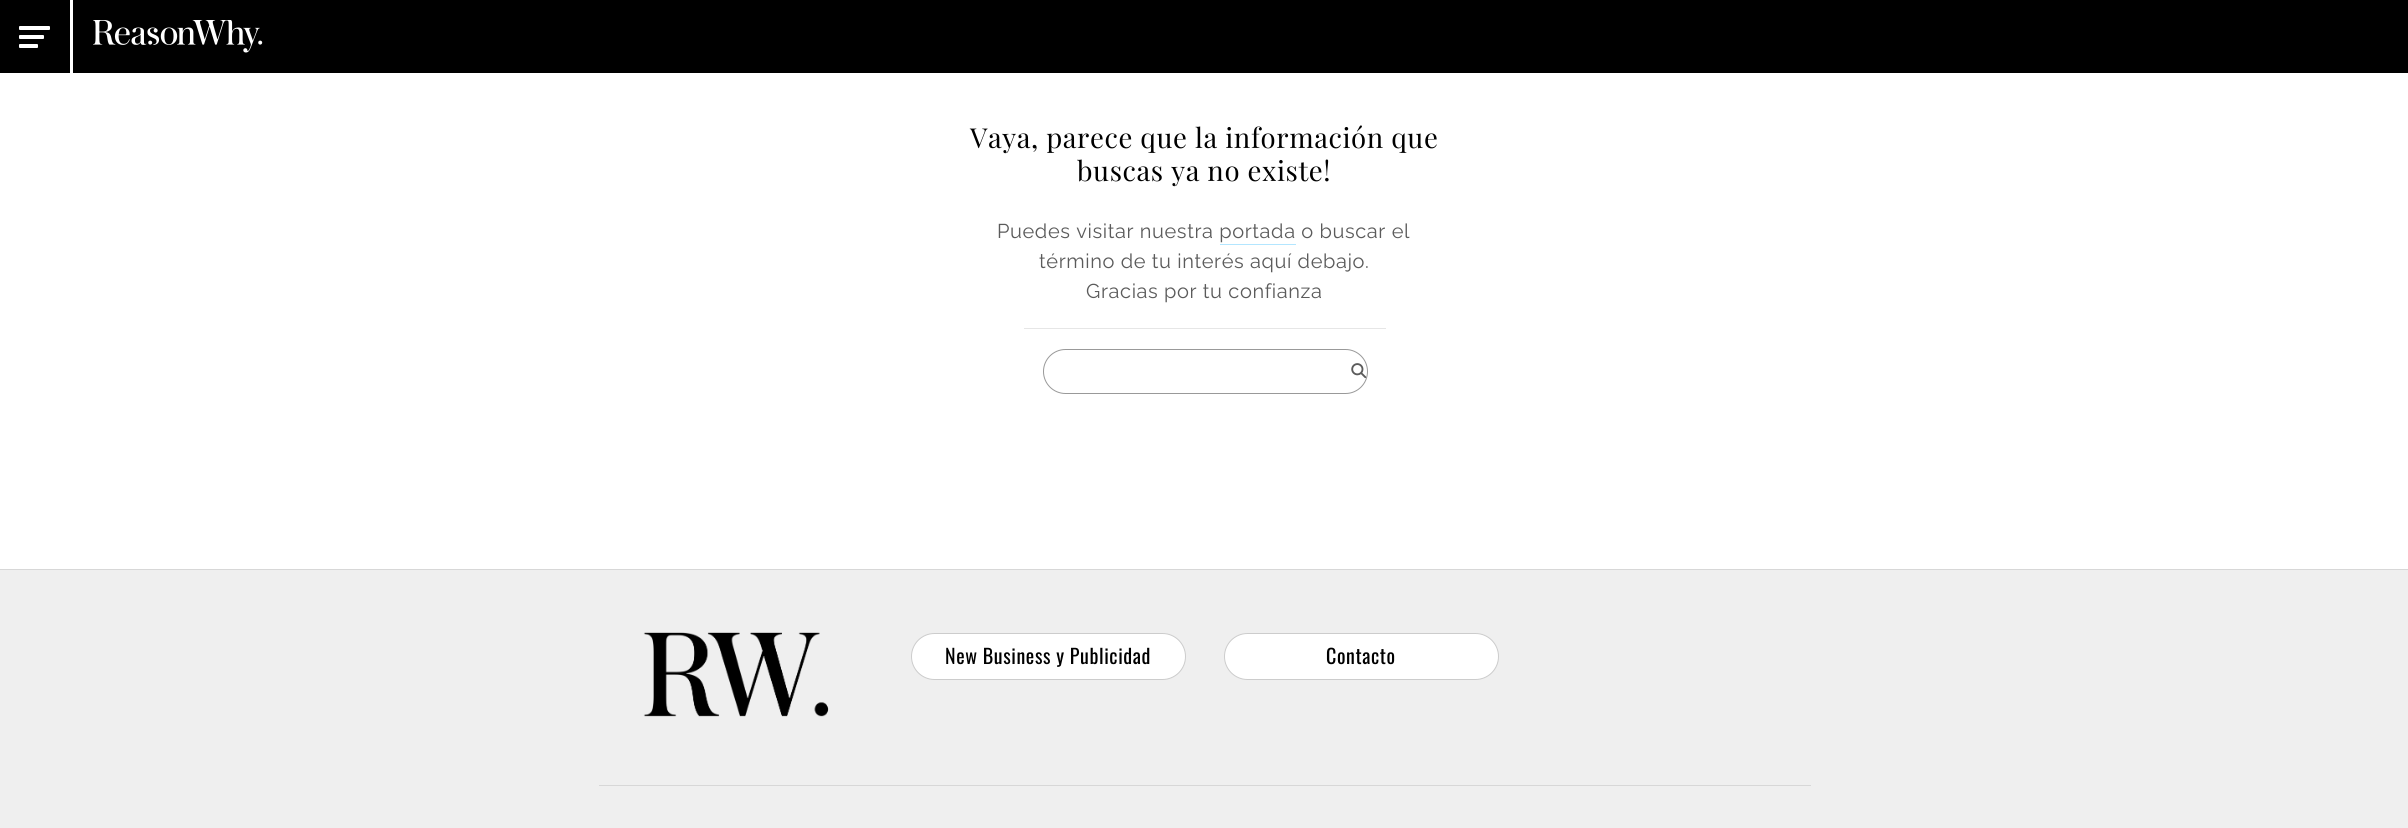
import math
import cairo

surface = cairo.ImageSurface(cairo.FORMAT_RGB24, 2408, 828)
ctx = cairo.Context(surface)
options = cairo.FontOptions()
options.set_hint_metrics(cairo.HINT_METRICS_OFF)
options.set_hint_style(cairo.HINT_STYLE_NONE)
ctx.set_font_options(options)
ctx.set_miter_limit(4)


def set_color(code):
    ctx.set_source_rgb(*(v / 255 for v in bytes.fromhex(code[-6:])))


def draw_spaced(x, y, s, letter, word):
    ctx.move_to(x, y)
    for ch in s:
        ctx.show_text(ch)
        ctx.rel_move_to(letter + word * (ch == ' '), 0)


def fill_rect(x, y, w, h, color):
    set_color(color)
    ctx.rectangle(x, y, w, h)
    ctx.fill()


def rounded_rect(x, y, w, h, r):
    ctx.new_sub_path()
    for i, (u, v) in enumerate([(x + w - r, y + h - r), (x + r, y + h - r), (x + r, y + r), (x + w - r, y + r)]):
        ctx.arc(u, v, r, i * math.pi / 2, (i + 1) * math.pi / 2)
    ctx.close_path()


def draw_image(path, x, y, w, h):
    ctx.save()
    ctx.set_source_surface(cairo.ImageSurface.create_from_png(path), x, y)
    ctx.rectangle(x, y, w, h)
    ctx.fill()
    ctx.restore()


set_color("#ffffff")
ctx.paint()
fill_rect(0, 0, 2408, 73, "#000000")
set_color("#ffffff")
rounded_rect(19, 26, 31, 4, 1)
ctx.fill()
rounded_rect(19, 35, 25, 4, 1)
ctx.fill()
rounded_rect(19, 44, 19, 4, 1)
ctx.fill()
fill_rect(70, 0, 3, 73, "#ffffff")
draw_image("assets/img1.png", 93, 20, 170, 33)
ctx.select_font_face("Playfair Display")
ctx.set_font_size(27.5)
set_color("#000000")
draw_spaced(970, 148, "Vaya, parece que la información que", 0.6, 0)
draw_spaced(1077, 181, "buscas ya no existe!", 0.6, 0)
ctx.select_font_face("Raleway")
ctx.set_font_size(20)
set_color("#5b5b5b")
draw_spaced(997, 238, "Puedes visitar nuestra portada o buscar el", 0.6, 0)
fill_rect(1220, 244, 76, 1, "#b3e6ff")
set_color("#5b5b5b")
draw_spaced(1039, 268, "término de tu interés aquí debajo.", 0.6, 0)
draw_spaced(1086, 298, "Gracias por tu confianza", 0.6, 0)
fill_rect(1024, 328, 362, 1, "#e6e6e6")
rounded_rect(1043.5, 349.5, 324, 44, 22)
set_color("#999999")
ctx.set_line_width(1)
ctx.stroke()
draw_image("assets/img2.png", 1351, 363, 16, 16)
fill_rect(0, 570, 2408, 258, "#efefef")
fill_rect(0, 569, 2408, 1, "#d7d7d7")
draw_image("assets/img3.png", 643, 632, 186, 85)
set_color("#ffffff")
rounded_rect(911.5, 633.5, 274, 46, 23)
ctx.fill_preserve()
set_color("#cccccc")
ctx.stroke()
ctx.select_font_face("Oswald")
set_color("#000000")
draw_spaced(945, 664, "New Business y Publicidad", 0.6, 0)
set_color("#ffffff")
rounded_rect(1224.5, 633.5, 274, 46, 23)
ctx.fill_preserve()
set_color("#cccccc")
ctx.stroke()
set_color("#000000")
draw_spaced(1326, 664, "Contacto", 0.6, 0)
fill_rect(599, 785, 1212, 1, "#d7d7d7")
surface.write_to_png("output.png")
